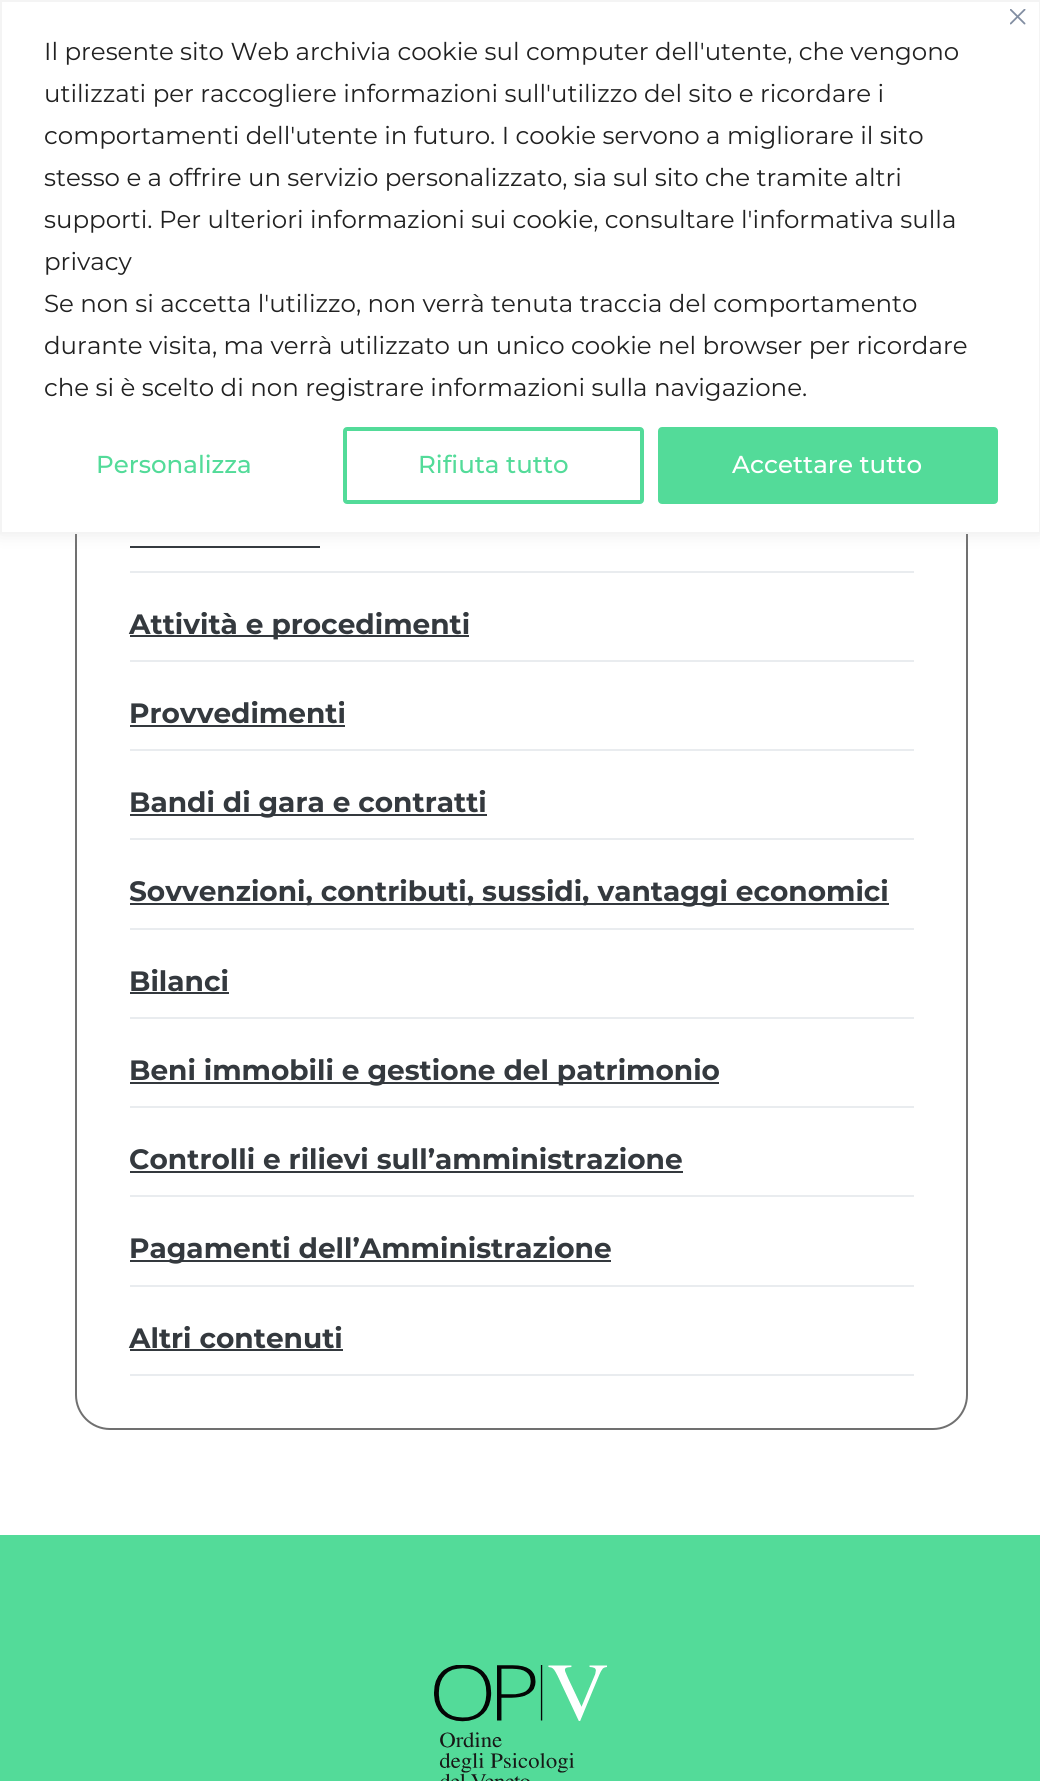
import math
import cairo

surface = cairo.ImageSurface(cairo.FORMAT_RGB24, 1040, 1781)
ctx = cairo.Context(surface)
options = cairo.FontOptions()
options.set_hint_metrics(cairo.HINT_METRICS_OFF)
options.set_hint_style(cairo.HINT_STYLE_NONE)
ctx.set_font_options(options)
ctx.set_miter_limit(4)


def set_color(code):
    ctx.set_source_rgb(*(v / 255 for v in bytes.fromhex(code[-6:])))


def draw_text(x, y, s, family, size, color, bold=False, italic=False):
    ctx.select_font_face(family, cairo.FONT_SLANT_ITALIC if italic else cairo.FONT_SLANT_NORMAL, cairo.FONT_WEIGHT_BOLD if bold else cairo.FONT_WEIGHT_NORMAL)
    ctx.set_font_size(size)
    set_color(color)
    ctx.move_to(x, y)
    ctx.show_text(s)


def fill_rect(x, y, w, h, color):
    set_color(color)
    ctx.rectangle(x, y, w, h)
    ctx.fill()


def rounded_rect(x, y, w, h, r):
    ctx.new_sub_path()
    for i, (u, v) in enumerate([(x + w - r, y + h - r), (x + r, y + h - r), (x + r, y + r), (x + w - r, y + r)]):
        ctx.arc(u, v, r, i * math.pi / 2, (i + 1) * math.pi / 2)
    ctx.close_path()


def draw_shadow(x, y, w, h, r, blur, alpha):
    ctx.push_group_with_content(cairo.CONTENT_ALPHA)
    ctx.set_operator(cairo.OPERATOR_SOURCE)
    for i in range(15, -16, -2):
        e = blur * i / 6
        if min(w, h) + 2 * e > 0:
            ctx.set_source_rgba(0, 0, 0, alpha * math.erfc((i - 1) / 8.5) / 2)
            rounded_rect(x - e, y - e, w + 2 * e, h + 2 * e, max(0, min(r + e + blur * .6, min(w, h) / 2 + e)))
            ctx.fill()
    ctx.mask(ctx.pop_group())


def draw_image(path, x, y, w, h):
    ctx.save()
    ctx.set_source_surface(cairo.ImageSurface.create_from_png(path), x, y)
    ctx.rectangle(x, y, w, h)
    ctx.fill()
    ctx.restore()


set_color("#ffffff")
ctx.paint()
rounded_rect(76, -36, 891, 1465, 34)
set_color("#707070")
ctx.stroke()
fill_rect(130, 546, 190, 2, "#34393e")
set_color("#acabab")
draw_shadow(0, -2, 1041, 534, 0, 9, 0.3)
set_color("#ffffff")
ctx.rectangle(1, 1, 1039, 532)
ctx.fill_preserve()
set_color("#f4f4f4")
ctx.stroke()
draw_image("assets/img1.png", 1010, 9, 16, 16)
draw_text(44, 60, "Il presente sito Web archivia cookie sul computer dell'utente, che vengono", "Montserrat", 24.5, "#212121")
draw_text(44, 102, "utilizzati per raccogliere informazioni sull'utilizzo del sito e ricordare i", "Montserrat", 24.5, "#212121")
draw_text(44, 144, "comportamenti dell'utente in futuro. I cookie servono a migliorare il sito", "Montserrat", 24.5, "#212121")
draw_text(44, 186, "stesso e a offrire un servizio personalizzato, sia sul sito che tramite altri", "Montserrat", 24.5, "#212121")
draw_text(44, 228, "supporti. Per ulteriori informazioni sui cookie, consultare l'informativa sulla", "Montserrat", 24.5, "#212121")
draw_text(44, 270, "privacy", "Montserrat", 24.5, "#212121")
draw_text(44, 312, "Se non si accetta l'utilizzo, non verrà tenuta traccia del comportamento", "Montserrat", 24.5, "#212121")
draw_text(44, 354, "durante visita, ma verrà utilizzato un unico cookie nel browser per ricordare", "Montserrat", 24.5, "#212121")
draw_text(44, 396, "che si è scelto di non registrare informazioni sulla navigazione.", "Montserrat", 24.5, "#212121")
draw_text(96, 473, "Personalizza", "Montserrat Medium", 24.5, "#53db99")
rounded_rect(345, 429, 297, 73, 2)
ctx.set_line_width(4)
ctx.stroke()
draw_text(418, 473, "Rifiuta tutto", "Montserrat Medium", 24.5, "#53db99")
rounded_rect(660, 429, 336, 73, 2)
ctx.fill_preserve()
ctx.stroke()
draw_text(732, 473, "Accettare tutto", "Montserrat Medium", 24.5, "#ffffff")
fill_rect(130, 571, 784, 2, "#e9ecef")
fill_rect(130, 660, 784, 2, "#e9ecef")
fill_rect(130, 635, 339, 2, "#34393e")
draw_text(129, 634, "Attività e procedimenti", "Montserrat", 28, "#34393e", bold=True)
fill_rect(130, 749, 784, 2, "#e9ecef")
draw_text(129, 723, "Provvedimenti", "Montserrat", 28, "#34393e", bold=True)
fill_rect(130, 725, 215, 2, "#34393e")
fill_rect(130, 838, 784, 2, "#e9ecef")
fill_rect(130, 814, 357, 2, "#34393e")
draw_text(129, 812, "Bandi di gara e contratti", "Montserrat", 28, "#34393e", bold=True)
fill_rect(130, 928, 784, 2, "#e9ecef")
fill_rect(130, 903, 759, 2, "#34393e")
draw_text(129, 901, "Sovvenzioni, contributi, sussidi, vantaggi economici", "Montserrat", 28, "#34393e", bold=True)
fill_rect(130, 1017, 784, 2, "#e9ecef")
draw_text(129, 991, "Bilanci", "Montserrat", 28, "#34393e", bold=True)
fill_rect(130, 992, 99, 2, "#34393e")
fill_rect(130, 1106, 784, 2, "#e9ecef")
fill_rect(130, 1082, 589, 2, "#34393e")
draw_text(129, 1080, "Beni immobili e gestione del patrimonio", "Montserrat", 28, "#34393e", bold=True)
fill_rect(130, 1195, 784, 2, "#e9ecef")
draw_text(129, 1169, "Controlli e rilievi sull’amministrazione", "Montserrat", 28, "#34393e", bold=True)
fill_rect(130, 1171, 553, 2, "#34393e")
fill_rect(130, 1285, 784, 2, "#e9ecef")
fill_rect(130, 1260, 481, 2, "#34393e")
draw_text(129, 1258, "Pagamenti dell’Amministrazione", "Montserrat", 28, "#34393e", bold=True)
fill_rect(130, 1374, 784, 2, "#e9ecef")
draw_text(129, 1348, "Altri contenuti", "Montserrat", 28, "#34393e", bold=True)
fill_rect(130, 1349, 213, 2, "#34393e")
fill_rect(0, 1535, 1040, 246, "#53db99")
draw_image("assets/img2.png", 434, 1665, 173, 116)
surface.write_to_png("output.png")
